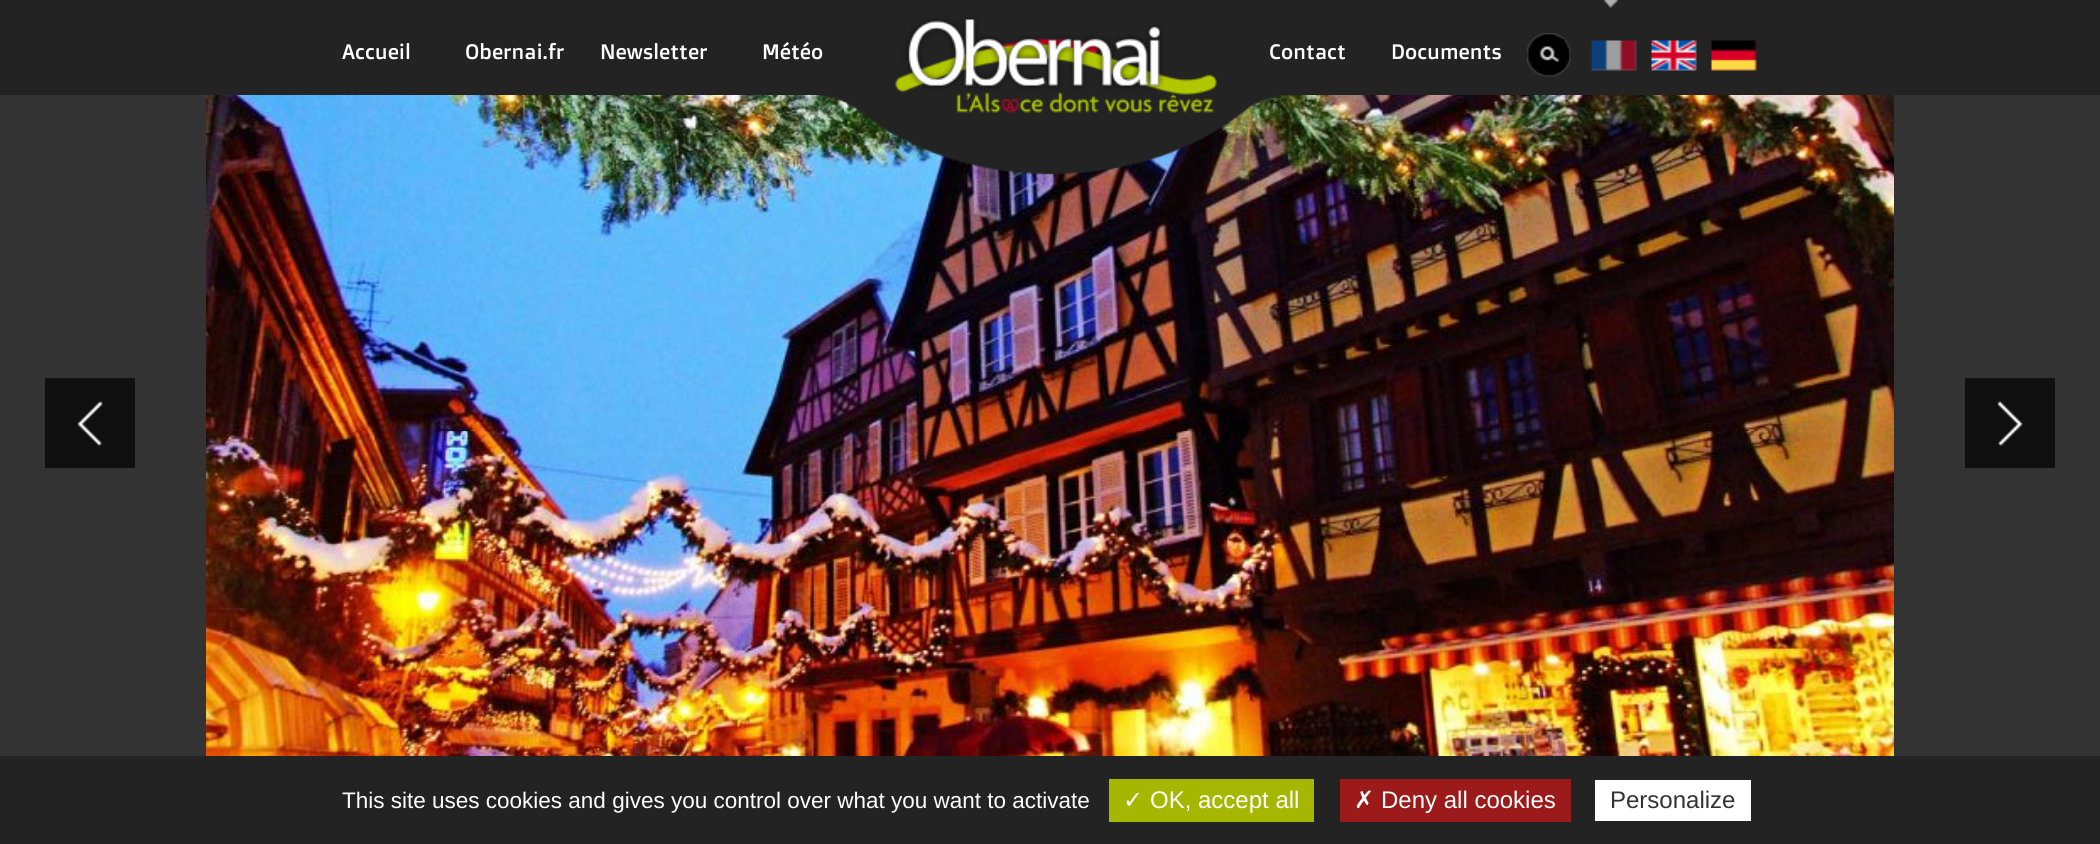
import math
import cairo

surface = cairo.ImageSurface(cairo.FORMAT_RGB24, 2100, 844)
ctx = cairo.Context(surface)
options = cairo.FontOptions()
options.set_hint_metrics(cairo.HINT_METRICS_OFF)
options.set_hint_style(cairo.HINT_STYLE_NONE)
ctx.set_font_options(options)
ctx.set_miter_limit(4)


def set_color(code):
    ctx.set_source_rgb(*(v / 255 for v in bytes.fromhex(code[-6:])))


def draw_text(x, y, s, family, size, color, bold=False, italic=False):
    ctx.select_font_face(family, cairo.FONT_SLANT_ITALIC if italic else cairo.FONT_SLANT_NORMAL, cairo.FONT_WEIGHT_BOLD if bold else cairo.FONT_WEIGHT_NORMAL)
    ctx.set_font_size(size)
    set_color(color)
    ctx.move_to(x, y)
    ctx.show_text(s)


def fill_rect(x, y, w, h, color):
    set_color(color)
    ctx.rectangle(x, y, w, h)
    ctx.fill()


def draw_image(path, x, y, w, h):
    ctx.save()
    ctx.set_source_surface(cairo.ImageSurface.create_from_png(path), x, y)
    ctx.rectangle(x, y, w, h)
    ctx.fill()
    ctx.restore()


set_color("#333333")
ctx.paint()
fill_rect(0, 0, 2100, 95, "#232323")
draw_text(342, 59, "Accueil", "Doppio One", 21, "#ffffff")
draw_text(465, 59, "Obernai.fr", "Doppio One", 21, "#ffffff")
draw_text(600, 59, "Newsletter", "Doppio One", 21, "#ffffff")
draw_image("assets/img11.png", 206, 95, 1688, 661)
draw_image("assets/img1.png", 816, 17, 471, 158)
draw_text(762, 59, "Météo", "Doppio One", 21, "#ffffff")
draw_text(1269, 59, "Contact", "Doppio One", 21, "#ffffff")
draw_text(1391, 59, "Documents", "Doppio One", 21, "#ffffff")
draw_image("assets/img3.png", 1547, 33, 3, 44)
draw_image("assets/img2.png", 1527, 33, 23, 44)
draw_image("assets/img5.png", 1548, 33, 23, 44)
draw_image("assets/img4.png", 1539, 39, 26, 30)
draw_image("assets/img6.png", 1603, 0, 16, 8)
draw_image("assets/img7.png", 1591, 40, 46, 31)
draw_image("assets/img8.png", 1651, 40, 46, 31)
draw_image("assets/img9.png", 1711, 40, 46, 31)
draw_image("assets/img10.png", 45, 377, 90, 91)
draw_image("assets/img12.png", 1965, 377, 90, 91)
fill_rect(0, 756, 2100, 88, "#232323")
draw_text(342, 808, "This site uses cookies and gives you control over what you want to activate", "Liberation Sans", 22.5, "#ffffff")
fill_rect(1109, 779, 205, 43, "#a5b701")
draw_text(1123, 808, "✓", "DejaVu Sans", 24, "#ffffff")
draw_text(1150, 808, "OK, accept all", "Liberation Sans", 24, "#ffffff")
fill_rect(1340, 779, 231, 43, "#9c1a1a")
draw_text(1354, 808, "✗", "DejaVu Sans", 24, "#ffffff")
draw_text(1381, 808, "Deny all cookies", "Liberation Sans", 24, "#ffffff")
fill_rect(1595, 780, 156, 41, "#ffffff")
draw_text(1610, 808, "Personalize", "Liberation Sans", 24, "#333333")
surface.write_to_png("output.png")
